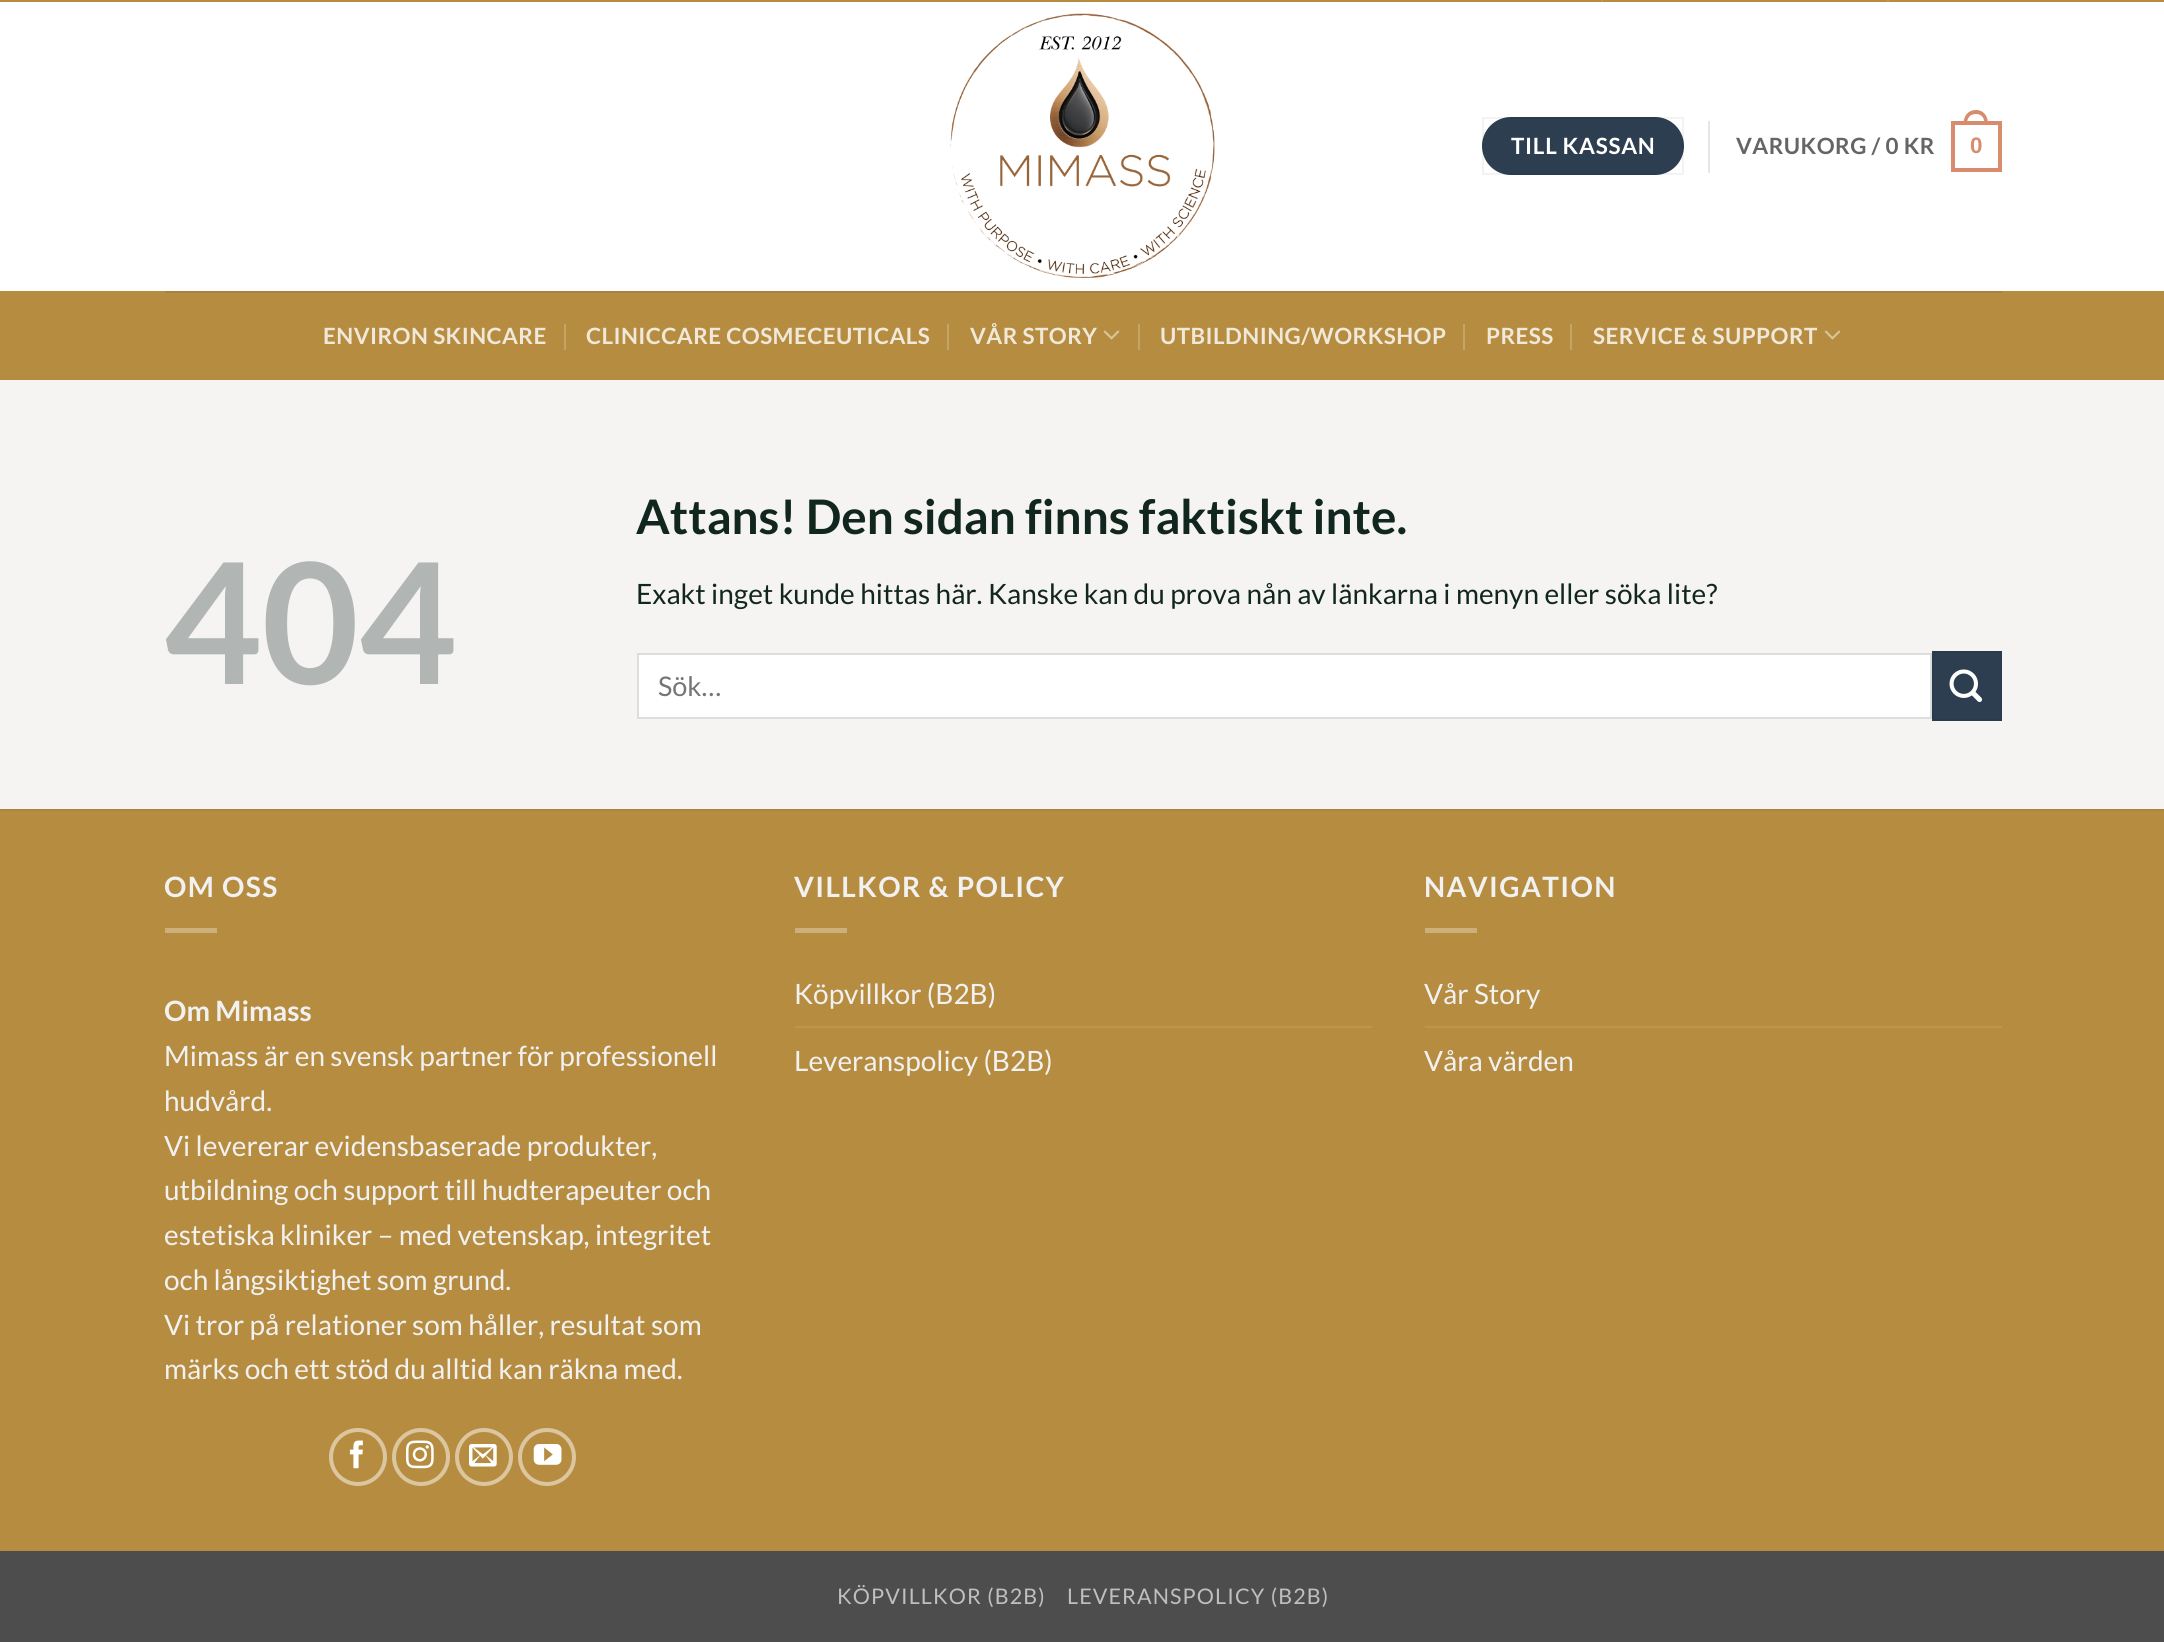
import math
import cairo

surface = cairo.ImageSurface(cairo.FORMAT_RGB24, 2164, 1642)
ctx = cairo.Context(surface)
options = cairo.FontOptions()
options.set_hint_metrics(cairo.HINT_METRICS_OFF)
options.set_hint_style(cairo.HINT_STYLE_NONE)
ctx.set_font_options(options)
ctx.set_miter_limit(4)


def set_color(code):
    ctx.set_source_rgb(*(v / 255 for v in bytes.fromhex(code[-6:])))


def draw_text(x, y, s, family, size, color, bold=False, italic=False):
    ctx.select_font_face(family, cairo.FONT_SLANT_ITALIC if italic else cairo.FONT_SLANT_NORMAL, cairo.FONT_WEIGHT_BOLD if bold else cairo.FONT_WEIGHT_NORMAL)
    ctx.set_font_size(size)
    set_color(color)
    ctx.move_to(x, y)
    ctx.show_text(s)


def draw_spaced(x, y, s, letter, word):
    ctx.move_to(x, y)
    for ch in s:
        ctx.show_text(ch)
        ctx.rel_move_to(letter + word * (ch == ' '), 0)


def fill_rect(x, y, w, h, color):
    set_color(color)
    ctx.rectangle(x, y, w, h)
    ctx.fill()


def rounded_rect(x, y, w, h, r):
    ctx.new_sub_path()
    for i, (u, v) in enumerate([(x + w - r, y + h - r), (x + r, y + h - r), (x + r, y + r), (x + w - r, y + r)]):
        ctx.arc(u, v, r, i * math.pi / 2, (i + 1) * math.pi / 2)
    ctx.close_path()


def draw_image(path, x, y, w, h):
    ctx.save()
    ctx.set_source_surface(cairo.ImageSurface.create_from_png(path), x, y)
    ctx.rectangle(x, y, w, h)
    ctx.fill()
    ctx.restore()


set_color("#f5f4f3")
ctx.paint()
fill_rect(0, 0, 2164, 2, "#b68d40")
fill_rect(1601, 0, 2, 2, "#bd9853")
fill_rect(1887, 0, 2, 2, "#bd9853")
fill_rect(0, 2, 2164, 289, "#ffffff")
draw_image("assets/img1.png", 950, 13, 265, 265)
set_color("#2c3e50")
rounded_rect(1482, 117, 202, 58, 29)
ctx.fill()
ctx.rectangle(1483, 118, 200, 56)
ctx.set_source_rgba(0, 0, 0, 0.05)
ctx.stroke()
ctx.select_font_face("Lato", cairo.FONT_SLANT_NORMAL, cairo.FONT_WEIGHT_BOLD)
ctx.set_font_size(22.4)
set_color("#ffffff")
draw_spaced(1511, 154, "TILL KASSAN", 0.75, 0)
fill_rect(1708, 121, 2, 52, "#e6e6e6")
set_color("#656565")
draw_spaced(1736, 154, "VARUKORG / 0 KR", 0.45, 0)
ctx.rectangle(1953, 123, 47, 47)
set_color("#d88c6d")
ctx.set_line_width(4)
ctx.stroke()
ctx.set_fill_rule(cairo.FILL_RULE_EVEN_ODD)
ctx.new_path()
ctx.move_to(1976, 110)
ctx.curve_to(1984, 110, 1988, 116.5, 1988, 124)
ctx.line_to(1963.5, 124)
ctx.curve_to(1963.5, 116.5, 1967.5, 110, 1976, 110)
ctx.close_path()
ctx.move_to(1976, 114)
ctx.curve_to(1982, 114, 1984.5, 118.5, 1984.5, 124)
ctx.line_to(1967, 124)
ctx.curve_to(1967, 118.5, 1969.5, 114, 1976, 114)
ctx.close_path()
ctx.fill()
ctx.select_font_face("Liberation Sans", cairo.FONT_SLANT_NORMAL, cairo.FONT_WEIGHT_BOLD)
draw_spaced(1970, 153, "0", 0.45, 0)
fill_rect(0, 291, 2164, 89, "#b68d40")
fill_rect(165, 291, 1837, 2, "#a6833d")
ctx.select_font_face("Lato", cairo.FONT_SLANT_NORMAL, cairo.FONT_WEIGHT_BOLD)
set_color("#f0e8d9")
draw_spaced(323, 344, "ENVIRON SKINCARE", 0.45, 0)
fill_rect(564, 324, 2, 26, "#c5a466")
set_color("#f0e8d9")
draw_spaced(586, 344, "CLINICCARE COSMECEUTICALS", 0.45, 0)
fill_rect(947, 324, 2, 26, "#c5a466")
set_color("#f0e8d9")
draw_spaced(970, 344, "VÅR STORY", 0.45, 0)
draw_image("assets/img2.png", 1103, 330, 17, 10)
fill_rect(1138, 324, 2, 26, "#c5a466")
set_color("#f0e8d9")
draw_spaced(1160, 344, "UTBILDNING/WORKSHOP", 0.45, 0)
fill_rect(1463, 324, 2, 26, "#c5a466")
set_color("#f0e8d9")
draw_spaced(1486, 344, "PRESS", 0.45, 0)
fill_rect(1570, 324, 2, 26, "#c5a466")
set_color("#f0e8d9")
draw_spaced(1593, 344, "SERVICE & SUPPORT", 0.45, 0)
draw_image("assets/img2.png", 1824, 330, 17, 10)
draw_text(164, 684, "404", "Lato", 168, "#b1b6b4", bold=True)
draw_text(636, 534, "Attans! Den sidan finns faktiskt inte.", "Lato", 47.6, "#122620", bold=True)
draw_text(636, 604, "Exakt inget kunde hittas här. Kanske kan du prova nån av länkarna i menyn eller söka lite?", "Lato", 28, "#122620")
set_color("#ffffff")
ctx.rectangle(638, 654, 1293, 64)
ctx.fill_preserve()
set_color("#dddddd")
ctx.set_line_width(2)
ctx.stroke()
draw_text(658, 696, "Sök…", "Lato", 27, "#757575")
set_color("#2c3e50")
ctx.rectangle(1933, 652, 68, 68)
ctx.fill_preserve()
set_color("#2a3b4c")
ctx.stroke()
draw_image("assets/img3.png", 1949, 669, 34, 33)
fill_rect(0, 811, 2164, 740, "#b68d40")
fill_rect(0, 809, 2164, 2, "#ad863d")
ctx.select_font_face("Lato", cairo.FONT_SLANT_NORMAL, cairo.FONT_WEIGHT_BOLD)
ctx.set_font_size(28)
set_color("#f1f1f1")
draw_spaced(164, 897, "OM OSS", 1.4, 0)
fill_rect(165, 928, 52, 5, "#ccaf79")
draw_text(164, 1021, "Om Mimass", "Lato", 28, "#f1f1f1", bold=True)
draw_text(164, 1066, "Mimass är en svensk partner för professionell", "Lato", 28, "#f1f1f1")
draw_text(164, 1111, "hudvård.", "Lato", 28, "#f1f1f1")
draw_text(164, 1156, "Vi levererar evidensbaserade produkter,", "Lato", 28, "#f1f1f1")
draw_text(164, 1200, "utbildning och support till hudterapeuter och", "Lato", 28, "#f1f1f1")
draw_text(164, 1245, "estetiska kliniker – med vetenskap, integritet", "Lato", 28, "#f1f1f1")
draw_text(164, 1290, "och långsiktighet som grund.", "Lato", 28, "#f1f1f1")
draw_text(164, 1335, "Vi tror på relationer som håller, resultat som", "Lato", 28, "#f1f1f1")
draw_text(164, 1379, "märks och ett stöd du alltid kan räkna med.", "Lato", 28, "#f1f1f1")
ctx.new_path()
ctx.arc(358, 1457, 27, 0, 2 * math.pi)
set_color("#dbc6a0")
ctx.set_line_width(4)
ctx.stroke()
draw_image("assets/img4.png", 349, 1440, 14, 29)
ctx.arc(421, 1457, 27, 0, 2 * math.pi)
ctx.stroke()
draw_image("assets/img5.png", 406, 1440, 28, 29)
ctx.arc(484, 1457, 27, 0, 2 * math.pi)
ctx.stroke()
draw_image("assets/img6.png", 469, 1444, 28, 23)
ctx.arc(547, 1457, 27, 0, 2 * math.pi)
ctx.stroke()
draw_image("assets/img7.png", 533, 1444, 29, 21)
ctx.select_font_face("Lato", cairo.FONT_SLANT_NORMAL, cairo.FONT_WEIGHT_BOLD)
set_color("#f1f1f1")
draw_spaced(794, 897, "VILLKOR & POLICY", 1.4, 0)
fill_rect(795, 928, 52, 5, "#ccaf79")
draw_text(794, 1004, "Köpvillkor (B2B)", "Lato", 28, "#f1f1f1")
fill_rect(795, 1026, 577, 2, "#bc964f")
draw_text(794, 1071, "Leveranspolicy (B2B)", "Lato", 28, "#f1f1f1")
ctx.select_font_face("Lato", cairo.FONT_SLANT_NORMAL, cairo.FONT_WEIGHT_BOLD)
draw_spaced(1424, 897, "NAVIGATION", 1.4, 0)
fill_rect(1425, 928, 52, 5, "#ccaf79")
draw_text(1424, 1004, "Vår Story", "Lato", 28, "#f1f1f1")
fill_rect(1425, 1026, 577, 2, "#bc964f")
draw_text(1424, 1071, "Våra värden", "Lato", 28, "#f1f1f1")
fill_rect(0, 1551, 2164, 91, "#4d4d4d")
ctx.set_font_size(21.5)
set_color("#bfbfbf")
draw_spaced(837, 1604, "KÖPVILLKOR (B2B)", 1.1, 0)
draw_spaced(1067, 1604, "LEVERANSPOLICY (B2B)", 1.1, 0)
surface.write_to_png("output.png")
